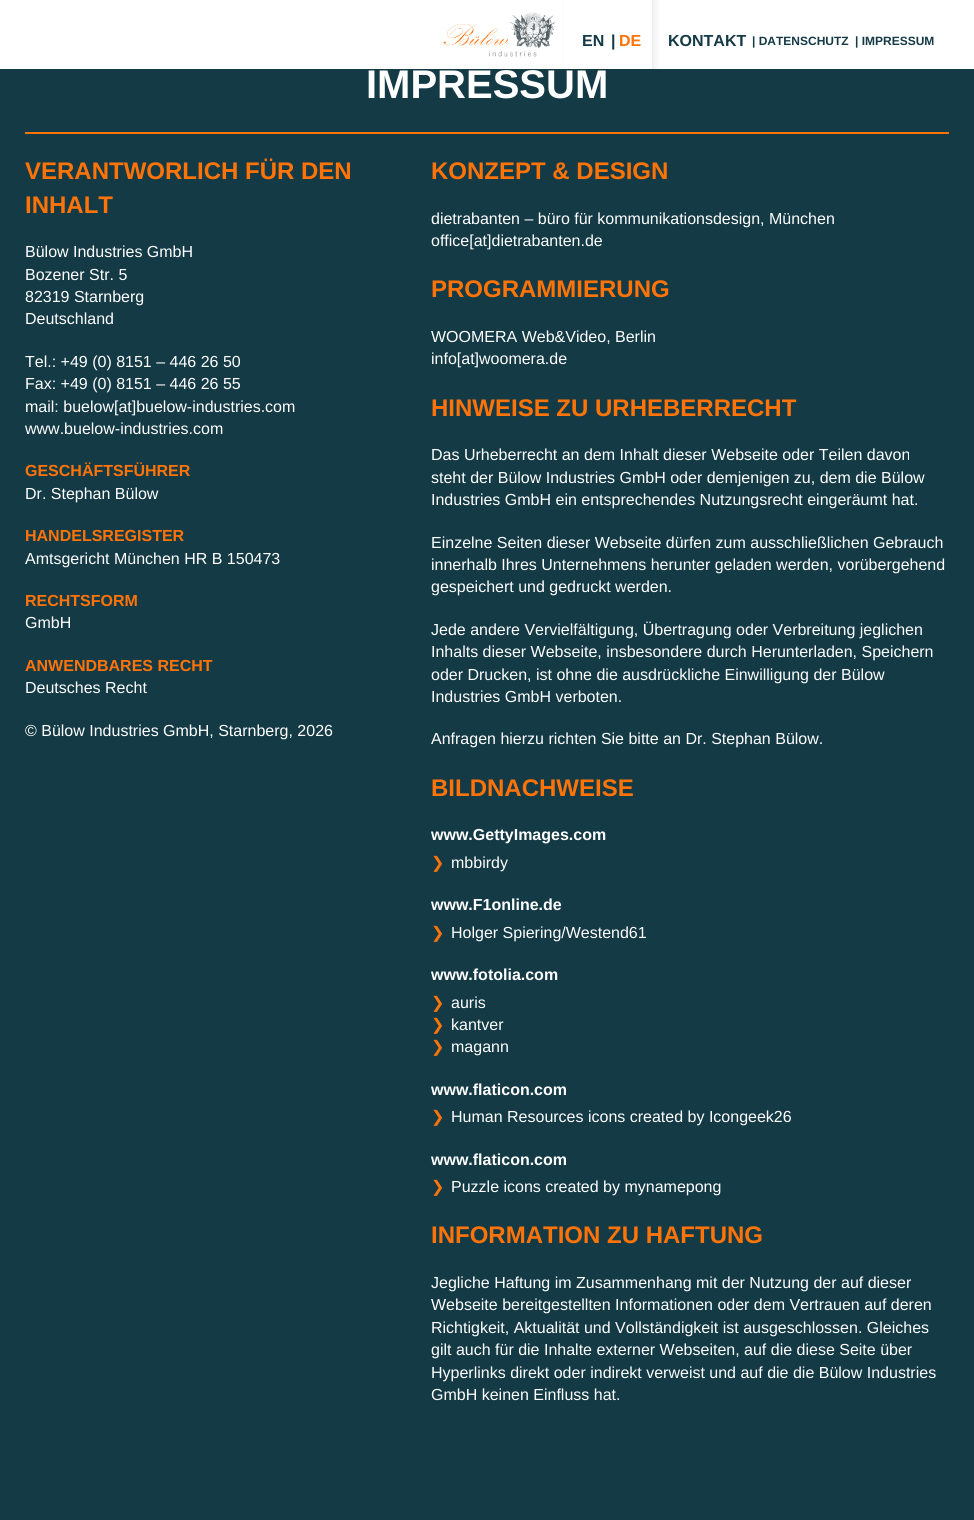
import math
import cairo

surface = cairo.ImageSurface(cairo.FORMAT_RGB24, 974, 1520)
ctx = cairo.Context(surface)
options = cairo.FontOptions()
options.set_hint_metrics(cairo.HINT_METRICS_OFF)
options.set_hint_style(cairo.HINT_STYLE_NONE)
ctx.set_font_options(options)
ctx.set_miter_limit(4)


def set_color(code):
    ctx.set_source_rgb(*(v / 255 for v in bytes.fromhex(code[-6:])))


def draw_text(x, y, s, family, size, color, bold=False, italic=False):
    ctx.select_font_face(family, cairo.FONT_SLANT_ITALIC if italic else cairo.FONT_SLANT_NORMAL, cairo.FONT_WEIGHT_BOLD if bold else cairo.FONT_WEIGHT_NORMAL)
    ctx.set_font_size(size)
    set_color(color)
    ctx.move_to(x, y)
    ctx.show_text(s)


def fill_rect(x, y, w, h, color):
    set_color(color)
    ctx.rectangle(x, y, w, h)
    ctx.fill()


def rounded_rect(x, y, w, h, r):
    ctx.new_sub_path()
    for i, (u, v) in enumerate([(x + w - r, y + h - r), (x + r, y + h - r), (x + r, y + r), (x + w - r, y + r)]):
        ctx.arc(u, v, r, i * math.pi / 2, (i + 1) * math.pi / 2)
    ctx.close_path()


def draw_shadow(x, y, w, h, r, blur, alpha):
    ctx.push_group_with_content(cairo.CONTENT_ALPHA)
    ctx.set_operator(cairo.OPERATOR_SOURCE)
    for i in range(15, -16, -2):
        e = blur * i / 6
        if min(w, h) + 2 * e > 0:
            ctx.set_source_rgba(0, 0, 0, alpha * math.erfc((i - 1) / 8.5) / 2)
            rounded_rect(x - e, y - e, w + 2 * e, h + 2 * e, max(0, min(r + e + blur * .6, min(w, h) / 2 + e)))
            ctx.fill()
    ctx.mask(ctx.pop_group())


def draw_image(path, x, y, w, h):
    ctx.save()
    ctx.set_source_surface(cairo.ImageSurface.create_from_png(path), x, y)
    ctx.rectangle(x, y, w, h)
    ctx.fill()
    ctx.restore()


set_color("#143a46")
ctx.paint()
fill_rect(0, 0, 974, 69, "#ffffff")
ctx.save()
ctx.rectangle(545, 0, 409, 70)
ctx.clip()
ctx.set_fill_rule(cairo.FILL_RULE_EVEN_ODD)
ctx.new_path()
ctx.move_to(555, 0)
ctx.line_to(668, 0)
ctx.line_to(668, 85)
ctx.line_to(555, 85)
ctx.close_path()
ctx.move_to(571, 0)
ctx.line_to(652, 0)
ctx.line_to(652, 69)
ctx.line_to(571, 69)
ctx.close_path()
ctx.clip()
set_color("#000000")
draw_shadow(571, 0, 81, 69, 0, 5, 0.15)
ctx.restore()
fill_rect(564, 0, 7, 69, "#ffffff")
draw_image("assets/img1.png", 443, 12, 113, 45)
draw_text(582, 46, "EN", "Liberation Sans", 16, "#143a46", bold=True)
draw_text(611, 46, "|", "Liberation Sans", 16, "#143a46", bold=True)
draw_text(619, 46, "DE", "Liberation Sans", 16, "#ff7307", bold=True)
draw_text(668, 46, "KONTAKT", "Liberation Sans", 16, "#143a46", bold=True)
draw_text(752, 45, "| DATENSCHUTZ", "Liberation Sans", 12, "#143a46", bold=True)
draw_text(855, 45, "| IMPRESSUM", "Liberation Sans", 12, "#143a46", bold=True)
fill_rect(25, 132, 924, 2, "#ff7307")
draw_text(366, 98, "IMPRESSUM", "Liberation Sans", 40, "#ffffff", bold=True)
draw_text(25, 179, "VERANTWORLICH FÜR DEN", "Liberation Sans", 24, "#ff7307", bold=True)
draw_text(25, 213, "INHALT", "Liberation Sans", 24, "#ff7307", bold=True)
draw_text(25, 257, "Bülow Industries GmbH", "Liberation Sans", 16, "#ffffff")
draw_text(25, 280, "Bozener Str. 5", "Liberation Sans", 16, "#ffffff")
draw_text(25, 302, "82319 Starnberg", "Liberation Sans", 16, "#ffffff")
draw_text(25, 324, "Deutschland", "Liberation Sans", 16, "#ffffff")
draw_text(25, 367, "Tel.: +49 (0) 8151 – 446 26 50", "Liberation Sans", 16, "#ffffff")
draw_text(25, 389, "Fax: +49 (0) 8151 – 446 26 55", "Liberation Sans", 16, "#ffffff")
draw_text(25, 412, "mail: buelow[at]buelow-industries.com", "Liberation Sans", 16, "#ffffff")
draw_text(25, 434, "www.buelow-industries.com", "Liberation Sans", 16, "#ffffff")
draw_text(25, 476, "GESCHÄFTSFÜHRER", "Liberation Sans", 16, "#ff7307", bold=True)
draw_text(25, 499, "Dr. Stephan Bülow", "Liberation Sans", 16, "#ffffff")
draw_text(25, 541, "HANDELSREGISTER", "Liberation Sans", 16, "#ff7307", bold=True)
draw_text(25, 564, "Amtsgericht München HR B 150473", "Liberation Sans", 16, "#ffffff")
draw_text(25, 606, "RECHTSFORM", "Liberation Sans", 16, "#ff7307", bold=True)
draw_text(25, 628, "GmbH", "Liberation Sans", 16, "#ffffff")
draw_text(25, 671, "ANWENDBARES RECHT", "Liberation Sans", 16, "#ff7307", bold=True)
draw_text(25, 693, "Deutsches Recht", "Liberation Sans", 16, "#ffffff")
draw_text(25, 736, "© Bülow Industries GmbH, Starnberg, 2026", "Liberation Sans", 16, "#ffffff")
draw_text(431, 179, "KONZEPT & DESIGN", "Liberation Sans", 24, "#ff7307", bold=True)
draw_text(431, 224, "dietrabanten – büro für kommunikationsdesign, München", "Liberation Sans", 16, "#ffffff")
draw_text(431, 246, "office[at]dietrabanten.de", "Liberation Sans", 16, "#ffffff")
draw_text(431, 297, "PROGRAMMIERUNG", "Liberation Sans", 24, "#ff7307", bold=True)
draw_text(431, 342, "WOOMERA Web&Video, Berlin", "Liberation Sans", 16, "#ffffff")
draw_text(431, 364, "info[at]woomera.de", "Liberation Sans", 16, "#ffffff")
draw_text(431, 416, "HINWEISE ZU URHEBERRECHT", "Liberation Sans", 24, "#ff7307", bold=True)
draw_text(431, 460, "Das Urheberrecht an dem Inhalt dieser Webseite oder Teilen davon", "Liberation Sans", 16, "#ffffff")
draw_text(431, 483, "steht der Bülow Industries GmbH oder demjenigen zu, dem die Bülow", "Liberation Sans", 16, "#ffffff")
draw_text(431, 505, "Industries GmbH ein entsprechendes Nutzungsrecht eingeräumt hat.", "Liberation Sans", 16, "#ffffff")
draw_text(431, 548, "Einzelne Seiten dieser Webseite dürfen zum ausschließlichen Gebrauch", "Liberation Sans", 16, "#ffffff")
draw_text(431, 570, "innerhalb Ihres Unternehmens herunter geladen werden, vorübergehend", "Liberation Sans", 16, "#ffffff")
draw_text(431, 592, "gespeichert und gedruckt werden.", "Liberation Sans", 16, "#ffffff")
draw_text(431, 635, "Jede andere Vervielfältigung, Übertragung oder Verbreitung jeglichen", "Liberation Sans", 16, "#ffffff")
draw_text(431, 657, "Inhalts dieser Webseite, insbesondere durch Herunterladen, Speichern", "Liberation Sans", 16, "#ffffff")
draw_text(431, 680, "oder Drucken, ist ohne die ausdrückliche Einwilligung der Bülow", "Liberation Sans", 16, "#ffffff")
draw_text(431, 702, "Industries GmbH verboten.", "Liberation Sans", 16, "#ffffff")
draw_text(431, 744, "Anfragen hierzu richten Sie bitte an Dr. Stephan Bülow.", "Liberation Sans", 16, "#ffffff")
draw_text(431, 796, "BILDNACHWEISE", "Liberation Sans", 24, "#ff7307", bold=True)
draw_text(431, 840, "www.GettyImages.com", "Liberation Sans", 16, "#ffffff", bold=True)
draw_text(431, 868, "❯", "DejaVu Sans", 16, "#ff7307")
draw_text(451, 868, "mbbirdy", "Liberation Sans", 16, "#ffffff")
draw_text(431, 910, "www.F1online.de", "Liberation Sans", 16, "#ffffff", bold=True)
draw_text(431, 938, "❯", "DejaVu Sans", 16, "#ff7307")
draw_text(451, 938, "Holger Spiering/Westend61", "Liberation Sans", 16, "#ffffff")
draw_text(431, 980, "www.fotolia.com", "Liberation Sans", 16, "#ffffff", bold=True)
draw_text(431, 1008, "❯", "DejaVu Sans", 16, "#ff7307")
draw_text(451, 1008, "auris", "Liberation Sans", 16, "#ffffff")
draw_text(431, 1030, "❯", "DejaVu Sans", 16, "#ff7307")
draw_text(451, 1030, "kantver", "Liberation Sans", 16, "#ffffff")
draw_text(431, 1052, "❯", "DejaVu Sans", 16, "#ff7307")
draw_text(451, 1052, "magann", "Liberation Sans", 16, "#ffffff")
draw_text(431, 1095, "www.flaticon.com", "Liberation Sans", 16, "#ffffff", bold=True)
draw_text(431, 1122, "❯", "DejaVu Sans", 16, "#ff7307")
draw_text(451, 1122, "Human Resources icons created by Icongeek26", "Liberation Sans", 16, "#ffffff")
draw_text(431, 1165, "www.flaticon.com", "Liberation Sans", 16, "#ffffff", bold=True)
draw_text(431, 1192, "❯", "DejaVu Sans", 16, "#ff7307")
draw_text(451, 1192, "Puzzle icons created by mynamepong", "Liberation Sans", 16, "#ffffff")
draw_text(431, 1243, "INFORMATION ZU HAFTUNG", "Liberation Sans", 24, "#ff7307", bold=True)
draw_text(431, 1288, "Jegliche Haftung im Zusammenhang mit der Nutzung der auf dieser", "Liberation Sans", 16, "#ffffff")
draw_text(431, 1310, "Webseite bereitgestellten Informationen oder dem Vertrauen auf deren", "Liberation Sans", 16, "#ffffff")
draw_text(431, 1333, "Richtigkeit, Aktualität und Vollständigkeit ist ausgeschlossen. Gleiches", "Liberation Sans", 16, "#ffffff")
draw_text(431, 1355, "gilt auch für die Inhalte externer Webseiten, auf die diese Seite über", "Liberation Sans", 16, "#ffffff")
draw_text(431, 1378, "Hyperlinks direkt oder indirekt verweist und auf die die Bülow Industries", "Liberation Sans", 16, "#ffffff")
draw_text(431, 1400, "GmbH keinen Einfluss hat.", "Liberation Sans", 16, "#ffffff")
surface.write_to_png("output.png")
